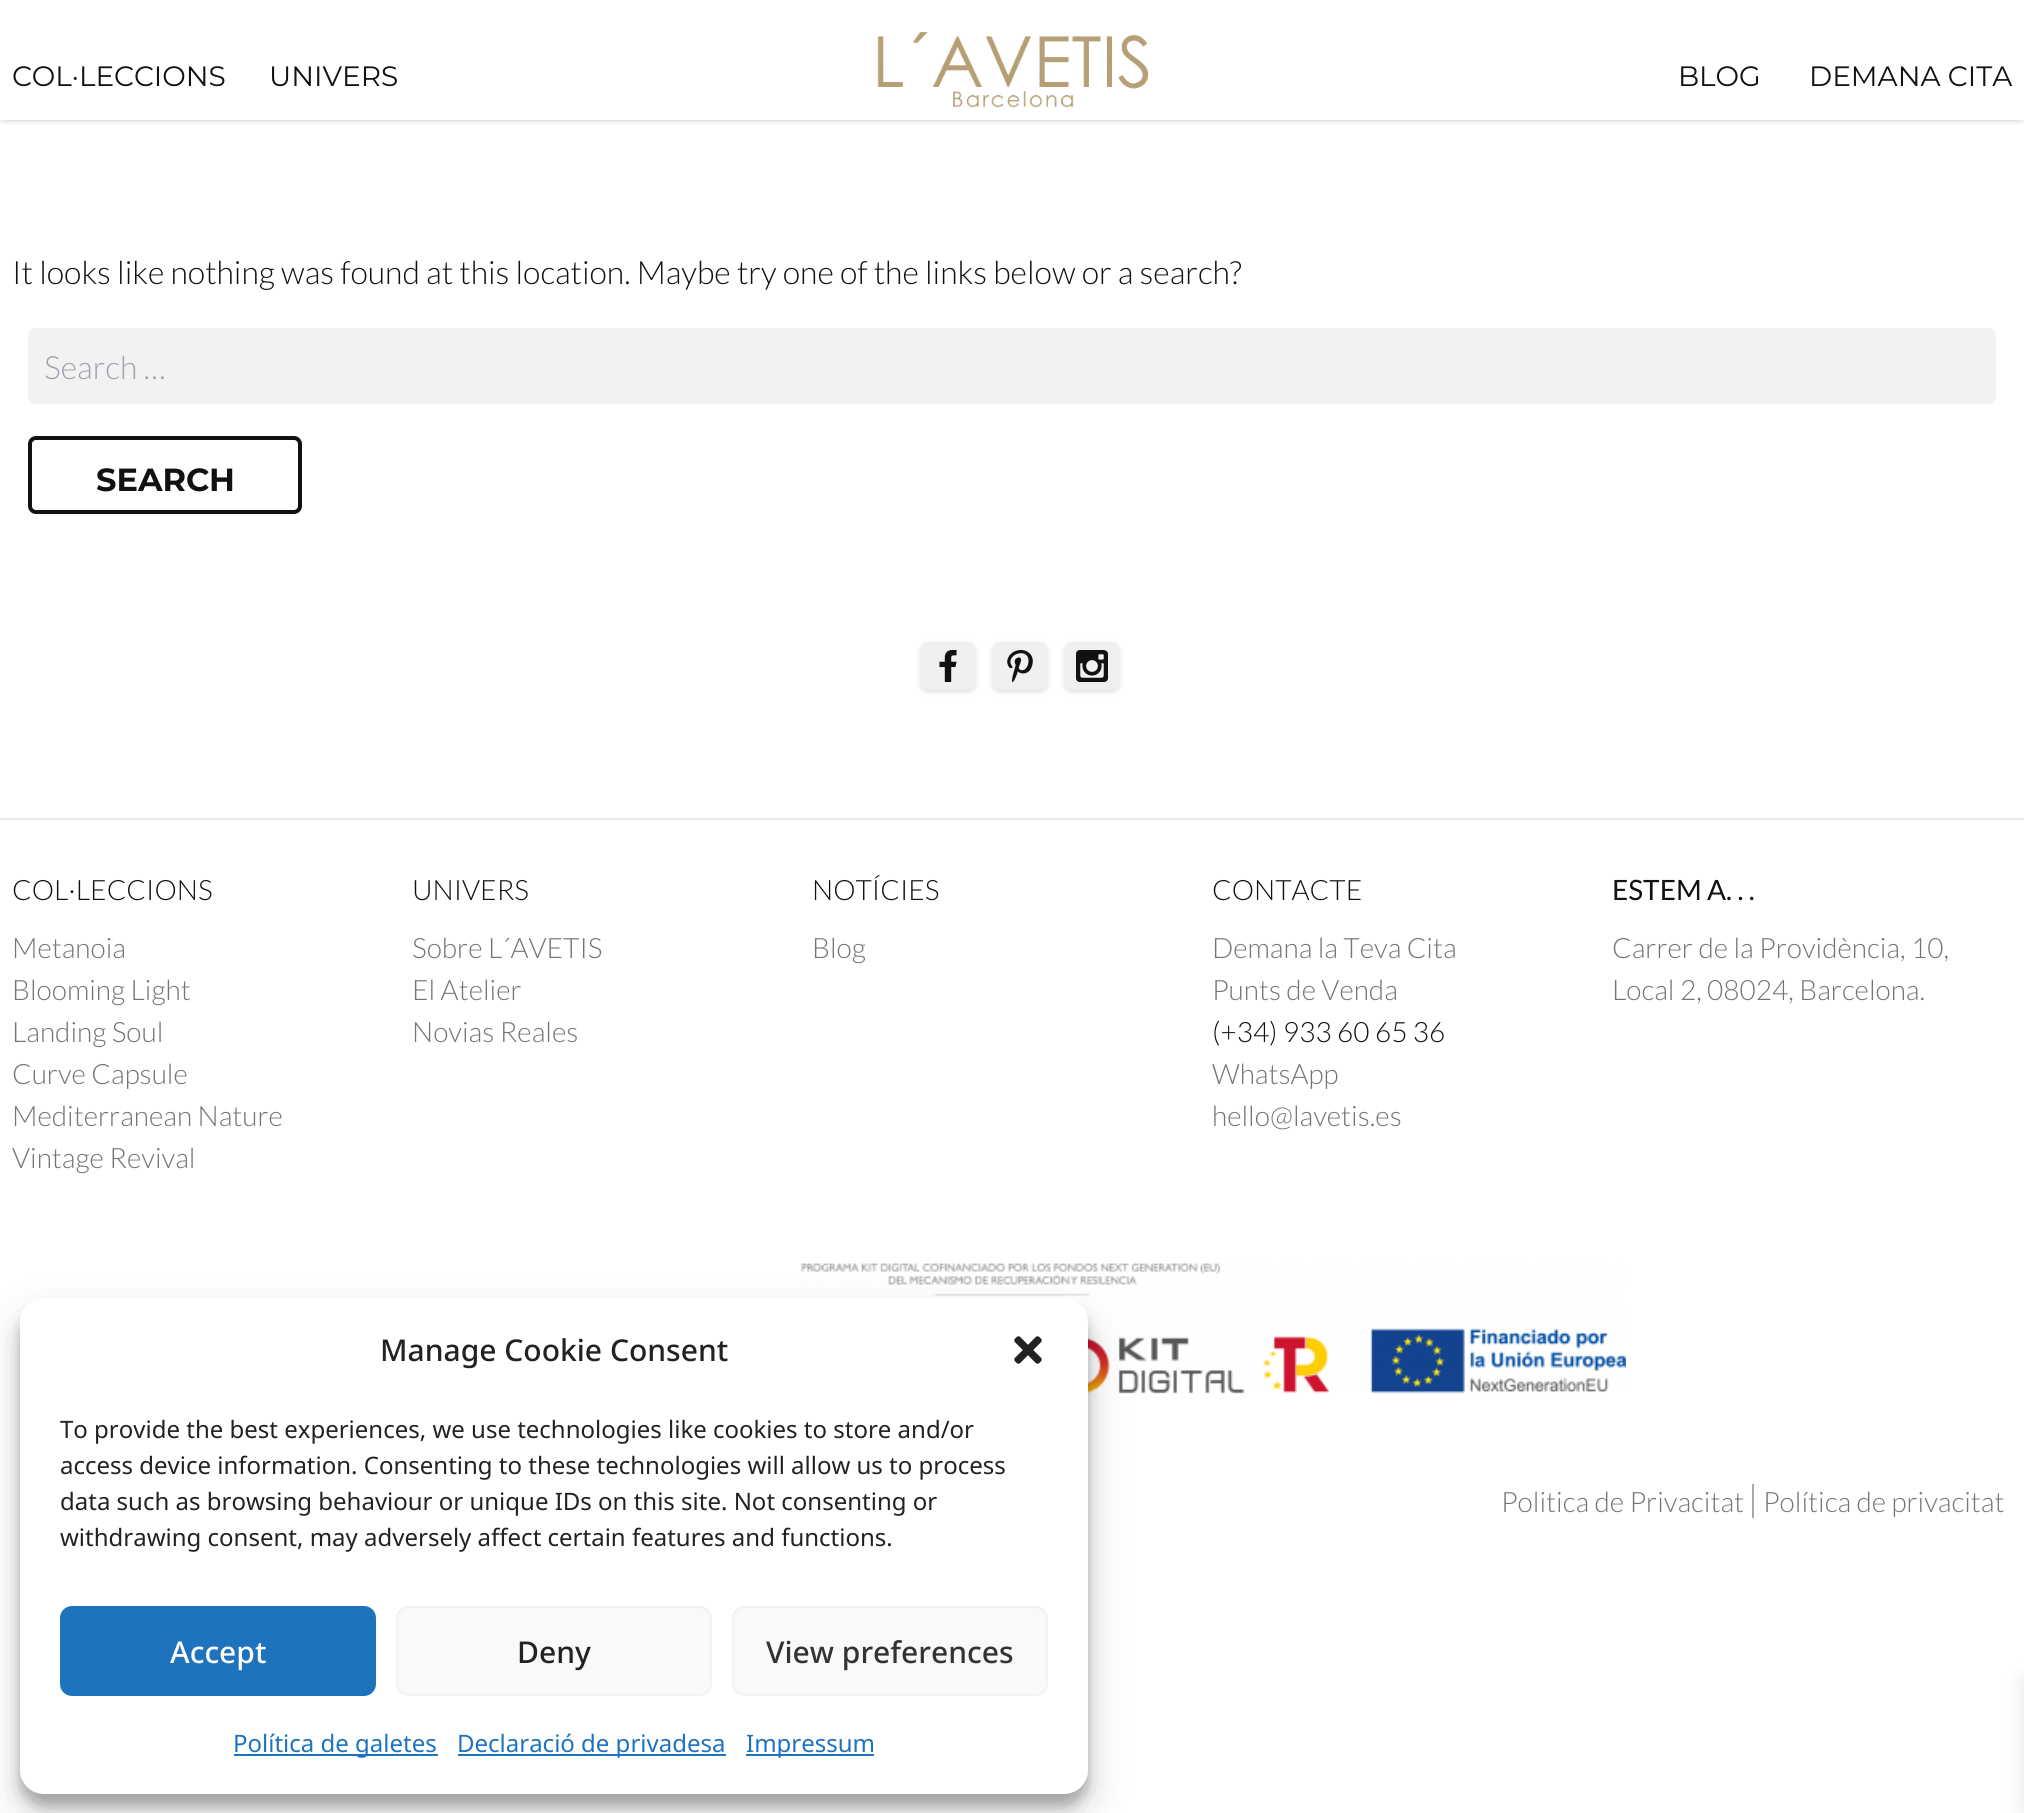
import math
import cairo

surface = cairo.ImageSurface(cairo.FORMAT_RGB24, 2024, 1813)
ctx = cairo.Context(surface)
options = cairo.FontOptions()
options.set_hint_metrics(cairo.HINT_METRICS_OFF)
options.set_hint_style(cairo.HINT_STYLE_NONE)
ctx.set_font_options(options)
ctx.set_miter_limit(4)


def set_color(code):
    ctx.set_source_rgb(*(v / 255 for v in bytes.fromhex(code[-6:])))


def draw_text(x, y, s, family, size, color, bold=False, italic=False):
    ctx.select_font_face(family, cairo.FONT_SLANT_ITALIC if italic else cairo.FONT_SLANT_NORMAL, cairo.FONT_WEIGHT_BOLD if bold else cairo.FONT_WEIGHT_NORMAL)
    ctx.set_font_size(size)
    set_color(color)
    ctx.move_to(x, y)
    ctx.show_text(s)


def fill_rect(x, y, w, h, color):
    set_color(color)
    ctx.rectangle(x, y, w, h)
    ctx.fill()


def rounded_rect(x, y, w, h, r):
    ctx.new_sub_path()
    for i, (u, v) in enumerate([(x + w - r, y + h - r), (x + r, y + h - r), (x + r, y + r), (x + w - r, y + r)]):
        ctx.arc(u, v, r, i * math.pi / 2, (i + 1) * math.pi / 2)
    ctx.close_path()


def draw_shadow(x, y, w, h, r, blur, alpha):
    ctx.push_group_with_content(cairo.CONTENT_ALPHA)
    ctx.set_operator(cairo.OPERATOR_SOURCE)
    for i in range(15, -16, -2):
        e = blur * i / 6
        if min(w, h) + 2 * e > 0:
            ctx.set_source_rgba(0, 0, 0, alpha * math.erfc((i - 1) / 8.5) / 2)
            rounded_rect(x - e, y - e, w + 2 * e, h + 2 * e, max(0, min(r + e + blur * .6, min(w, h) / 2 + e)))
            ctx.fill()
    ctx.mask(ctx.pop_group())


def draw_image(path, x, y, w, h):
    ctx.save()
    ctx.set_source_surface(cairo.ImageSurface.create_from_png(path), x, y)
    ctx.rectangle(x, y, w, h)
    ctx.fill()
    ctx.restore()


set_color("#ffffff")
ctx.paint()
ctx.save()
ctx.rectangle(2, 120, 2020, 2)
ctx.clip()
set_color("#000000")
draw_shadow(2, 4, 2020, 116, 0, 2, 0.1)
ctx.restore()
ctx.save()
ctx.rectangle(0, 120, 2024, 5)
ctx.clip()
set_color("#000000")
draw_shadow(0, 2, 2024, 120, 0, 3, 0.1)
ctx.restore()
draw_text(12, 86, "COL·LECCIONS", "Montserrat", 28, "#111111")
draw_text(269, 86, "UNIVERS", "Montserrat", 28, "#111111")
draw_image("assets/img1.png", 877, 32, 272, 76)
draw_text(1678, 86, "BLOG", "Montserrat", 28, "#111111")
draw_text(1809, 86, "DEMANA CITA", "Montserrat", 28, "#111111")
draw_text(12, 284, "It looks like nothing was found at this location. Maybe try one of the links below or a search?", "Lato Light", 32, "#111111")
set_color("#f2f2f2")
rounded_rect(28, 328, 1968, 76, 8)
ctx.fill()
draw_text(44, 379, "Search …", "Lato Light", 32, "#9ca3af")
rounded_rect(30, 438, 270, 74, 6)
set_color("#111111")
ctx.set_line_width(4)
ctx.stroke()
draw_text(96, 491, "SEARCH", "Montserrat", 32, "#111111", bold=True)
set_color("#000000")
draw_shadow(922, 646, 52, 44, 6, 2, 0.1)
draw_shadow(920, 644, 56, 48, 8, 3, 0.1)
set_color("#eef0f2")
rounded_rect(920, 642, 56, 48, 8)
ctx.fill()
draw_image("assets/img2.png", 939, 650, 18, 32)
set_color("#000000")
draw_shadow(994, 646, 52, 44, 6, 2, 0.1)
draw_shadow(992, 644, 56, 48, 8, 3, 0.1)
set_color("#eef0f2")
rounded_rect(992, 642, 56, 48, 8)
ctx.fill()
draw_image("assets/img3.png", 1007, 650, 26, 32)
set_color("#000000")
draw_shadow(1066, 646, 52, 44, 6, 2, 0.1)
draw_shadow(1064, 644, 56, 48, 8, 3, 0.1)
set_color("#eef0f2")
rounded_rect(1064, 642, 56, 48, 8)
ctx.fill()
draw_image("assets/img4.png", 1076, 650, 32, 32)
fill_rect(0, 818, 2024, 2, "#e8e8e8")
draw_text(12, 900, "COL·LECCIONS", "Lato Light", 28, "#111111")
draw_text(12, 958, "Metanoia", "Lato Light", 28, "#747474")
draw_text(12, 1000, "Blooming Light", "Lato Light", 28, "#747474")
draw_text(12, 1042, "Landing Soul", "Lato Light", 28, "#747474")
draw_text(12, 1084, "Curve Capsule", "Lato Light", 28, "#747474")
draw_text(12, 1126, "Mediterranean Nature", "Lato Light", 28, "#747474")
draw_text(12, 1168, "Vintage Revival", "Lato Light", 28, "#747474")
draw_text(412, 900, "UNIVERS", "Lato Light", 28, "#111111")
draw_text(412, 958, "Sobre L´AVETIS", "Lato Light", 28, "#747474")
draw_text(412, 1000, "El Atelier", "Lato Light", 28, "#747474")
draw_text(412, 1042, "Novias Reales", "Lato Light", 28, "#747474")
draw_text(812, 900, "NOTÍCIES", "Lato Light", 28, "#111111")
draw_text(812, 958, "Blog", "Lato Light", 28, "#747474")
draw_text(1212, 900, "CONTACTE", "Lato Light", 28, "#111111")
draw_text(1212, 958, "Demana la Teva Cita", "Lato Light", 28, "#747474")
draw_text(1212, 1000, "Punts de Venda", "Lato Light", 28, "#747474")
draw_text(1212, 1042, "(+34) 933 60 65 36", "Lato Light", 28, "#111111")
draw_text(1212, 1084, "WhatsApp", "Lato Light", 28, "#747474")
draw_text(1212, 1126, "hello@lavetis.es", "Lato Light", 28, "#747474")
draw_text(1612, 900, "ESTEM A. . .", "Lato", 28, "#111111")
draw_text(1612, 958, "Carrer de la Providència, 10,", "Lato Light", 28, "#747474")
draw_text(1612, 1000, "Local 2, 08024, Barcelona.", "Lato Light", 28, "#747474")
draw_image("assets/img5.png", 800, 1263, 826, 131)
fill_rect(1752, 1484, 2, 34, "#a8a8a8")
draw_text(1501, 1512, "Politica de Privacitat", "Lato Light", 28, "#747474")
draw_text(1763, 1512, "Política de privacitat", "Lato Light", 28, "#747474")
set_color("#000000")
draw_shadow(20, 1310, 1068, 496, 24, 6, 0.23)
draw_shadow(20, 1318, 1068, 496, 24, 20, 0.19)
set_color("#ffffff")
rounded_rect(20, 1298, 1068, 496, 24)
ctx.fill()
draw_text(380, 1361, "Manage Cookie Consent", "Noto Sans Medium", 30, "#222222")
draw_image("assets/img6.png", 1014, 1336, 28, 28)
draw_text(60, 1438, "To provide the best experiences, we use technologies like cookies to store and/or", "Noto Sans", 24, "#222222")
draw_text(60, 1474, "access device information. Consenting to these technologies will allow us to process", "Noto Sans", 24, "#222222")
draw_text(60, 1510, "data such as browsing behaviour or unique IDs on this site. Not consenting or", "Noto Sans", 24, "#222222")
draw_text(60, 1546, "withdrawing consent, may adversely affect certain features and functions.", "Noto Sans", 24, "#222222")
set_color("#1e73be")
rounded_rect(61, 1607, 314, 88, 11)
ctx.fill_preserve()
ctx.set_line_width(2)
ctx.stroke()
draw_text(170, 1663, "Accept", "Noto Sans Medium", 30, "#ffffff")
set_color("#f9f9f9")
rounded_rect(397, 1607, 314, 88, 11)
ctx.fill_preserve()
set_color("#f2f2f2")
ctx.stroke()
draw_text(517, 1663, "Deny", "Noto Sans Medium", 30, "#222222")
set_color("#f9f9f9")
rounded_rect(733, 1607, 314, 88, 11)
ctx.fill_preserve()
set_color("#f2f2f2")
ctx.stroke()
draw_text(766, 1663, "View preferences", "Noto Sans Medium", 30, "#333333")
fill_rect(234, 1754, 204, 2, "#1e73be")
draw_text(233, 1752, "Política de galetes", "Noto Sans", 24, "#1e73be")
fill_rect(458, 1754, 268, 2, "#1e73be")
draw_text(457, 1752, "Declaració de privadesa", "Noto Sans", 24, "#1e73be")
fill_rect(746, 1754, 128, 2, "#1e73be")
draw_text(746, 1752, "Impressum", "Noto Sans", 24, "#1e73be")
set_color("#000000")
draw_shadow(2024, 1680, 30, 132, 0, 10, 0.1)
surface.write_to_png("output.png")
